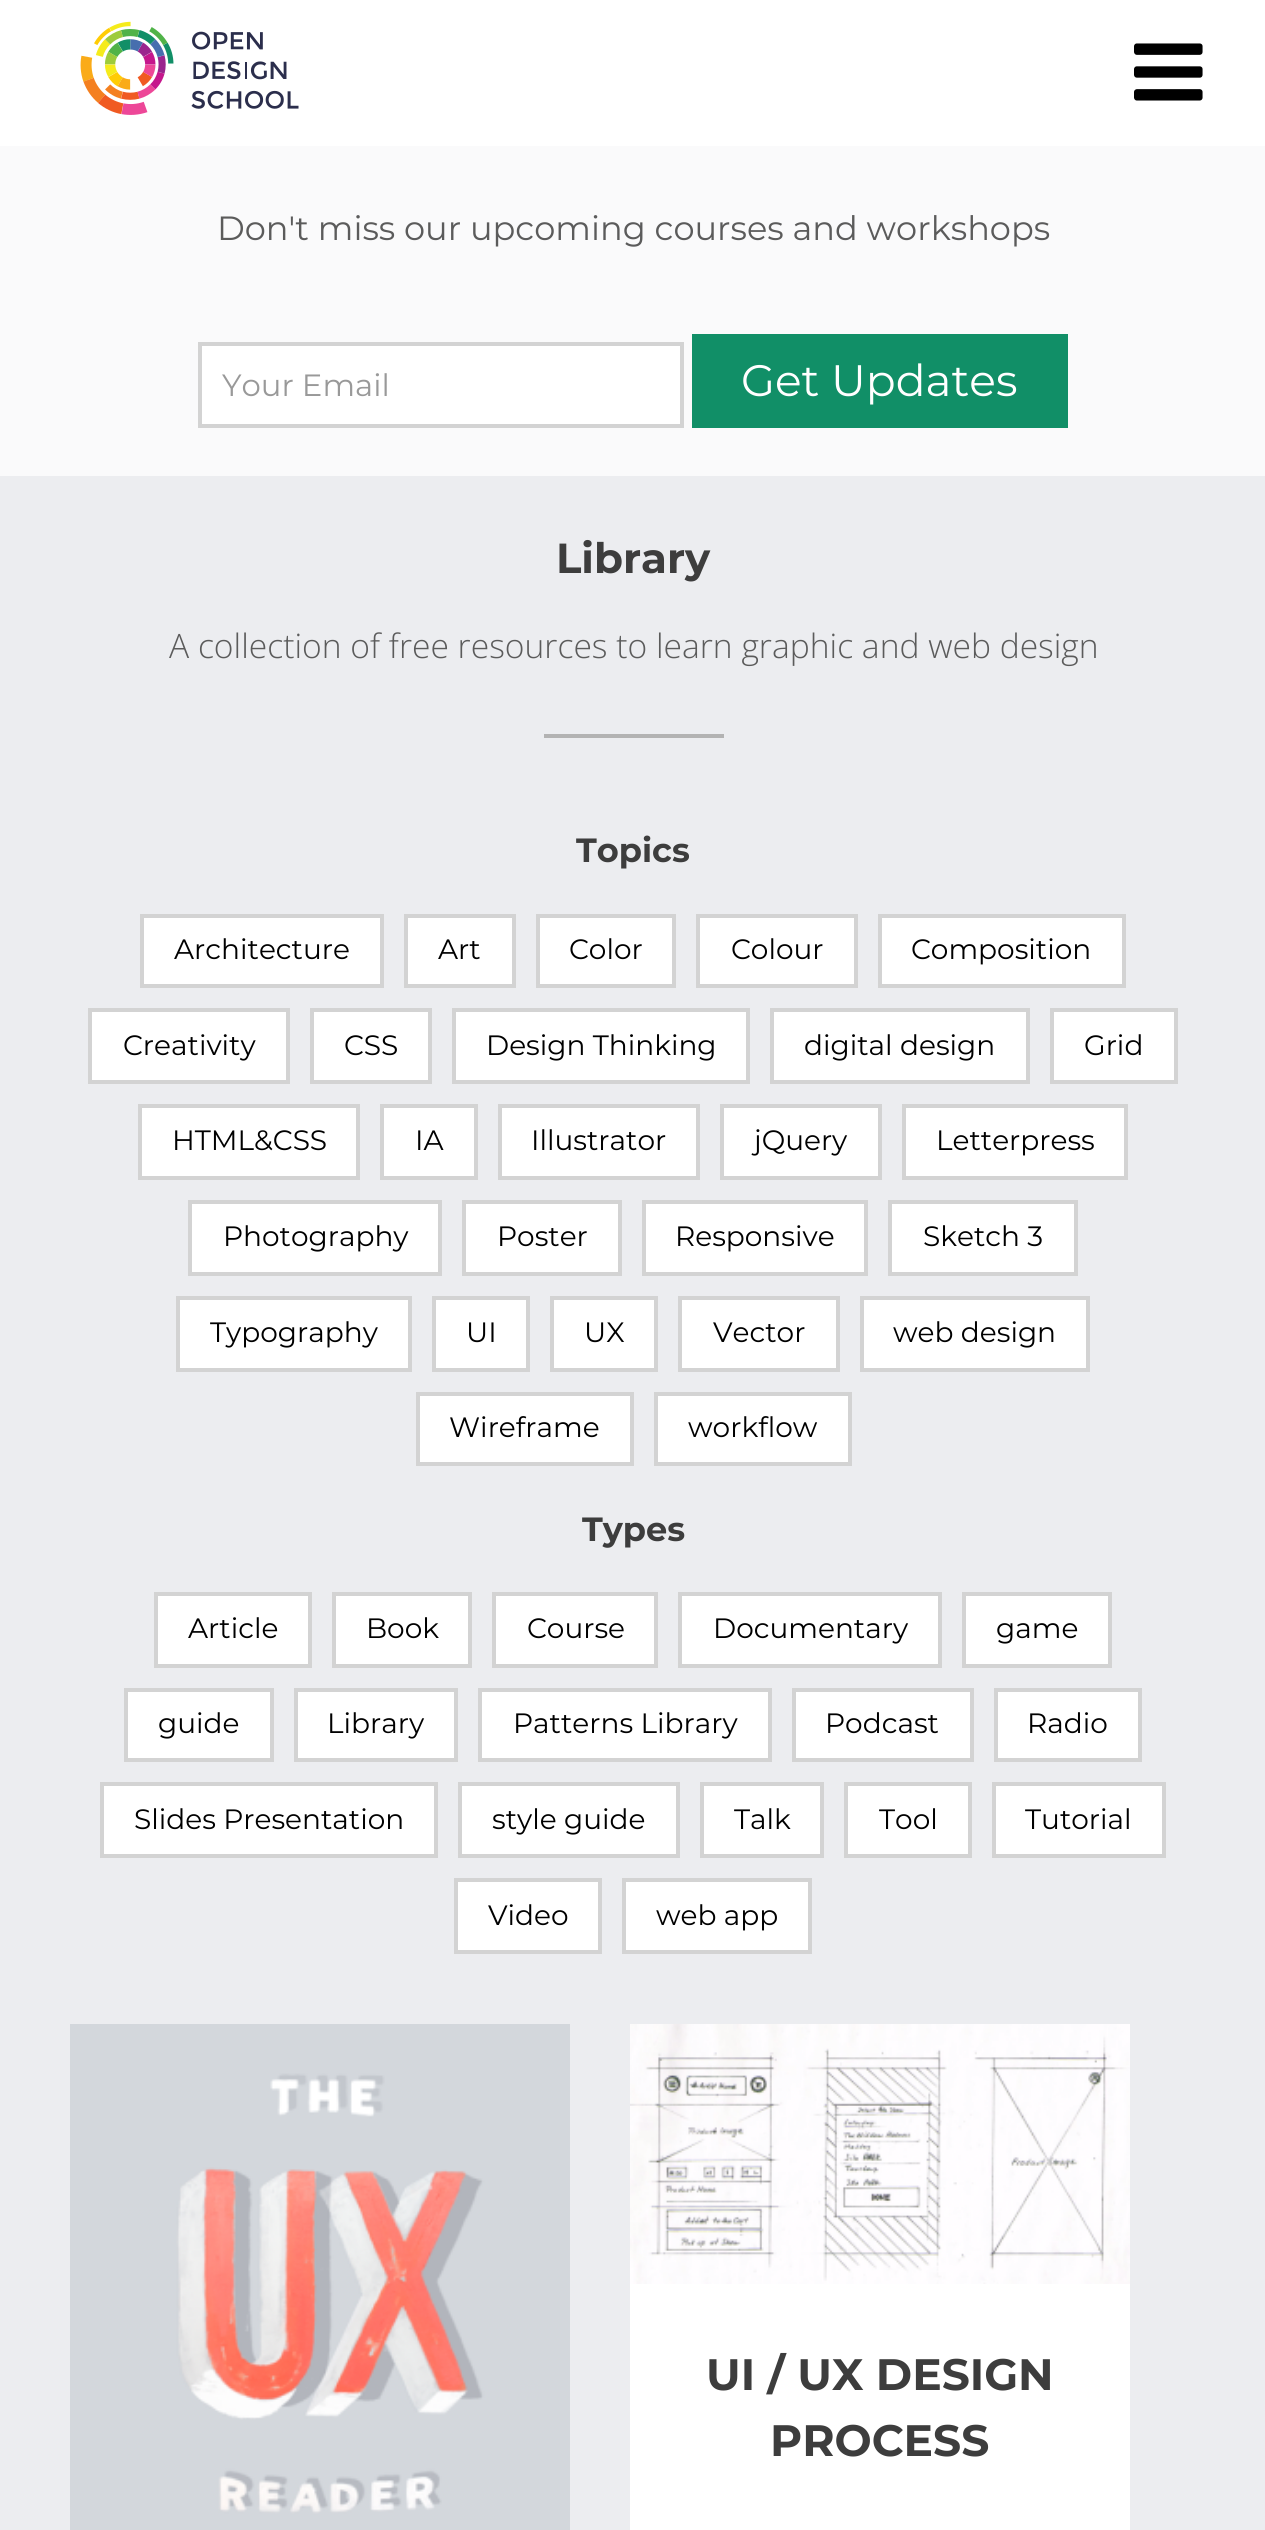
import math
import cairo

surface = cairo.ImageSurface(cairo.FORMAT_RGB24, 1265, 2530)
ctx = cairo.Context(surface)
options = cairo.FontOptions()
options.set_hint_metrics(cairo.HINT_METRICS_OFF)
options.set_hint_style(cairo.HINT_STYLE_NONE)
ctx.set_font_options(options)
ctx.set_miter_limit(4)


def set_color(code):
    ctx.set_source_rgb(*(v / 255 for v in bytes.fromhex(code[-6:])))


def draw_text(x, y, s, family, size, color, bold=False, italic=False):
    ctx.select_font_face(family, cairo.FONT_SLANT_ITALIC if italic else cairo.FONT_SLANT_NORMAL, cairo.FONT_WEIGHT_BOLD if bold else cairo.FONT_WEIGHT_NORMAL)
    ctx.set_font_size(size)
    set_color(color)
    ctx.move_to(x, y)
    ctx.show_text(s)


def fill_rect(x, y, w, h, color):
    set_color(color)
    ctx.rectangle(x, y, w, h)
    ctx.fill()


def draw_image(path, x, y, w, h):
    ctx.save()
    ctx.set_source_surface(cairo.ImageSurface.create_from_png(path), x, y)
    ctx.rectangle(x, y, w, h)
    ctx.fill()
    ctx.restore()


set_color("#ecedf0")
ctx.paint()
fill_rect(0, 0, 1265, 146, "#ffffff")
draw_image("assets/img1.png", 80, 21, 219, 94)
draw_image("assets/img2.png", 1134, 43, 69, 58)
fill_rect(0, 146, 1265, 330, "#fafafb")
draw_text(217, 240, "Don't miss our upcoming courses and workshops", "Montserrat", 33.6, "#5b5b5b")
set_color("#ffffff")
ctx.rectangle(200, 344, 482, 82)
ctx.fill_preserve()
set_color("#d3d3d3")
ctx.set_line_width(4)
ctx.stroke()
draw_text(222, 396, "Your Email", "Montserrat", 30.75, "#999999")
fill_rect(692, 334, 376, 94, "#118f67")
draw_text(741, 396, "Get Updates", "Montserrat", 44, "#ffffff")
draw_text(556, 573, "Library", "Montserrat", 42, "#3d3d3d", bold=True)
draw_text(169, 658, "A collection of free resources to learn graphic and web design", "Open Sans Light", 33.6, "#5b5b5b")
fill_rect(544, 734, 180, 4, "#b3b3b3")
draw_text(576, 862, "Topics", "Montserrat", 33.6, "#3d3d3d", bold=True)
set_color("#ffffff")
ctx.rectangle(142, 916, 240, 70)
ctx.fill_preserve()
set_color("#d3d3d3")
ctx.stroke()
draw_text(174, 959, "Architecture", "Montserrat", 28, "#000000")
set_color("#ffffff")
ctx.rectangle(406, 916, 108, 70)
ctx.fill_preserve()
set_color("#d3d3d3")
ctx.stroke()
draw_text(438, 959, "Art", "Montserrat", 28, "#000000")
set_color("#ffffff")
ctx.rectangle(538, 916, 136, 70)
ctx.fill_preserve()
set_color("#d3d3d3")
ctx.stroke()
draw_text(569, 959, "Color", "Montserrat", 28, "#000000")
set_color("#ffffff")
ctx.rectangle(698, 916, 158, 70)
ctx.fill_preserve()
set_color("#d3d3d3")
ctx.stroke()
draw_text(731, 959, "Colour", "Montserrat", 28, "#000000")
set_color("#ffffff")
ctx.rectangle(880, 916, 244, 70)
ctx.fill_preserve()
set_color("#d3d3d3")
ctx.stroke()
draw_text(911, 959, "Composition", "Montserrat", 28, "#000000")
set_color("#ffffff")
ctx.rectangle(90, 1010, 198, 72)
ctx.fill_preserve()
set_color("#d3d3d3")
ctx.stroke()
draw_text(123, 1055, "Creativity", "Montserrat", 28, "#000000")
set_color("#ffffff")
ctx.rectangle(312, 1010, 118, 72)
ctx.fill_preserve()
set_color("#d3d3d3")
ctx.stroke()
draw_text(344, 1055, "CSS", "Montserrat", 28, "#000000")
set_color("#ffffff")
ctx.rectangle(454, 1010, 294, 72)
ctx.fill_preserve()
set_color("#d3d3d3")
ctx.stroke()
draw_text(486, 1055, "Design Thinking", "Montserrat", 28, "#000000")
set_color("#ffffff")
ctx.rectangle(772, 1010, 256, 72)
ctx.fill_preserve()
set_color("#d3d3d3")
ctx.stroke()
draw_text(804, 1055, "digital design", "Montserrat", 28, "#000000")
set_color("#ffffff")
ctx.rectangle(1052, 1010, 124, 72)
ctx.fill_preserve()
set_color("#d3d3d3")
ctx.stroke()
draw_text(1084, 1055, "Grid", "Montserrat", 28, "#000000")
set_color("#ffffff")
ctx.rectangle(140, 1106, 218, 72)
ctx.fill_preserve()
set_color("#d3d3d3")
ctx.stroke()
draw_text(172, 1150, "HTML&CSS", "Montserrat", 28, "#000000")
set_color("#ffffff")
ctx.rectangle(382, 1106, 94, 72)
ctx.fill_preserve()
set_color("#d3d3d3")
ctx.stroke()
draw_text(415, 1150, "IA", "Montserrat", 28, "#000000")
set_color("#ffffff")
ctx.rectangle(500, 1106, 198, 72)
ctx.fill_preserve()
set_color("#d3d3d3")
ctx.stroke()
draw_text(531, 1150, "Illustrator", "Montserrat", 28, "#000000")
set_color("#ffffff")
ctx.rectangle(722, 1106, 158, 72)
ctx.fill_preserve()
set_color("#d3d3d3")
ctx.stroke()
draw_text(754, 1150, "jQuery", "Montserrat", 28, "#000000")
set_color("#ffffff")
ctx.rectangle(904, 1106, 222, 72)
ctx.fill_preserve()
set_color("#d3d3d3")
ctx.stroke()
draw_text(936, 1150, "Letterpress", "Montserrat", 28, "#000000")
set_color("#ffffff")
ctx.rectangle(190, 1202, 250, 72)
ctx.fill_preserve()
set_color("#d3d3d3")
ctx.stroke()
draw_text(223, 1246, "Photography", "Montserrat", 28, "#000000")
set_color("#ffffff")
ctx.rectangle(464, 1202, 156, 72)
ctx.fill_preserve()
set_color("#d3d3d3")
ctx.stroke()
draw_text(497, 1246, "Poster", "Montserrat", 28, "#000000")
set_color("#ffffff")
ctx.rectangle(644, 1202, 222, 72)
ctx.fill_preserve()
set_color("#d3d3d3")
ctx.stroke()
draw_text(675, 1246, "Responsive", "Montserrat", 28, "#000000")
set_color("#ffffff")
ctx.rectangle(890, 1202, 186, 72)
ctx.fill_preserve()
set_color("#d3d3d3")
ctx.stroke()
draw_text(923, 1246, "Sketch 3", "Montserrat", 28, "#000000")
set_color("#ffffff")
ctx.rectangle(178, 1298, 232, 72)
ctx.fill_preserve()
set_color("#d3d3d3")
ctx.stroke()
draw_text(210, 1342, "Typography", "Montserrat", 28, "#000000")
set_color("#ffffff")
ctx.rectangle(434, 1298, 94, 72)
ctx.fill_preserve()
set_color("#d3d3d3")
ctx.stroke()
draw_text(466, 1342, "UI", "Montserrat", 28, "#000000")
set_color("#ffffff")
ctx.rectangle(552, 1298, 104, 72)
ctx.fill_preserve()
set_color("#d3d3d3")
ctx.stroke()
draw_text(584, 1342, "UX", "Montserrat", 28, "#000000")
set_color("#ffffff")
ctx.rectangle(680, 1298, 158, 72)
ctx.fill_preserve()
set_color("#d3d3d3")
ctx.stroke()
draw_text(713, 1342, "Vector", "Montserrat", 28, "#000000")
set_color("#ffffff")
ctx.rectangle(862, 1298, 226, 72)
ctx.fill_preserve()
set_color("#d3d3d3")
ctx.stroke()
draw_text(893, 1342, "web design", "Montserrat", 28, "#000000")
set_color("#ffffff")
ctx.rectangle(418, 1394, 214, 70)
ctx.fill_preserve()
set_color("#d3d3d3")
ctx.stroke()
draw_text(449, 1437, "Wireframe", "Montserrat", 28, "#000000")
set_color("#ffffff")
ctx.rectangle(656, 1394, 194, 70)
ctx.fill_preserve()
set_color("#d3d3d3")
ctx.stroke()
draw_text(688, 1437, "workflow", "Montserrat", 28, "#000000")
draw_text(582, 1541, "Types", "Montserrat", 33.6, "#3d3d3d", bold=True)
set_color("#ffffff")
ctx.rectangle(156, 1594, 154, 72)
ctx.fill_preserve()
set_color("#d3d3d3")
ctx.stroke()
draw_text(188, 1638, "Article", "Montserrat", 28, "#000000")
set_color("#ffffff")
ctx.rectangle(334, 1594, 136, 72)
ctx.fill_preserve()
set_color("#d3d3d3")
ctx.stroke()
draw_text(366, 1638, "Book", "Montserrat", 28, "#000000")
set_color("#ffffff")
ctx.rectangle(494, 1594, 162, 72)
ctx.fill_preserve()
set_color("#d3d3d3")
ctx.stroke()
draw_text(527, 1638, "Course", "Montserrat", 28, "#000000")
set_color("#ffffff")
ctx.rectangle(680, 1594, 260, 72)
ctx.fill_preserve()
set_color("#d3d3d3")
ctx.stroke()
draw_text(713, 1638, "Documentary", "Montserrat", 28, "#000000")
set_color("#ffffff")
ctx.rectangle(964, 1594, 146, 72)
ctx.fill_preserve()
set_color("#d3d3d3")
ctx.stroke()
draw_text(996, 1638, "game", "Montserrat", 28, "#000000")
set_color("#ffffff")
ctx.rectangle(126, 1690, 146, 70)
ctx.fill_preserve()
set_color("#d3d3d3")
ctx.stroke()
draw_text(158, 1733, "guide", "Montserrat", 28, "#000000")
set_color("#ffffff")
ctx.rectangle(296, 1690, 160, 70)
ctx.fill_preserve()
set_color("#d3d3d3")
ctx.stroke()
draw_text(327, 1733, "Library", "Montserrat", 28, "#000000")
set_color("#ffffff")
ctx.rectangle(480, 1690, 290, 70)
ctx.fill_preserve()
set_color("#d3d3d3")
ctx.stroke()
draw_text(513, 1733, "Patterns Library", "Montserrat", 28, "#000000")
set_color("#ffffff")
ctx.rectangle(794, 1690, 178, 70)
ctx.fill_preserve()
set_color("#d3d3d3")
ctx.stroke()
draw_text(825, 1733, "Podcast", "Montserrat", 28, "#000000")
set_color("#ffffff")
ctx.rectangle(996, 1690, 144, 70)
ctx.fill_preserve()
set_color("#d3d3d3")
ctx.stroke()
draw_text(1027, 1733, "Radio", "Montserrat", 28, "#000000")
set_color("#ffffff")
ctx.rectangle(102, 1784, 334, 72)
ctx.fill_preserve()
set_color("#d3d3d3")
ctx.stroke()
draw_text(134, 1829, "Slides Presentation", "Montserrat", 28, "#000000")
set_color("#ffffff")
ctx.rectangle(460, 1784, 218, 72)
ctx.fill_preserve()
set_color("#d3d3d3")
ctx.stroke()
draw_text(492, 1829, "style guide", "Montserrat", 28, "#000000")
set_color("#ffffff")
ctx.rectangle(702, 1784, 120, 72)
ctx.fill_preserve()
set_color("#d3d3d3")
ctx.stroke()
draw_text(734, 1829, "Talk", "Montserrat", 28, "#000000")
set_color("#ffffff")
ctx.rectangle(846, 1784, 124, 72)
ctx.fill_preserve()
set_color("#d3d3d3")
ctx.stroke()
draw_text(879, 1829, "Tool", "Montserrat", 28, "#000000")
set_color("#ffffff")
ctx.rectangle(994, 1784, 170, 72)
ctx.fill_preserve()
set_color("#d3d3d3")
ctx.stroke()
draw_text(1025, 1829, "Tutorial", "Montserrat", 28, "#000000")
set_color("#ffffff")
ctx.rectangle(456, 1880, 144, 72)
ctx.fill_preserve()
set_color("#d3d3d3")
ctx.stroke()
draw_text(488, 1925, "Video", "Montserrat", 28, "#000000")
set_color("#ffffff")
ctx.rectangle(624, 1880, 186, 72)
ctx.fill_preserve()
set_color("#d3d3d3")
ctx.stroke()
draw_text(656, 1925, "web app", "Montserrat", 28, "#000000")
draw_image("assets/img3.png", 70, 2024, 500, 506)
fill_rect(630, 2284, 500, 246, "#ffffff")
draw_image("assets/img4.png", 630, 2024, 500, 260)
draw_text(706, 2390, "UI / UX DESIGN", "Montserrat", 44, "#3d3d3d", bold=True)
draw_text(770, 2456, "PROCESS", "Montserrat", 44, "#3d3d3d", bold=True)
surface.write_to_png("output.png")
